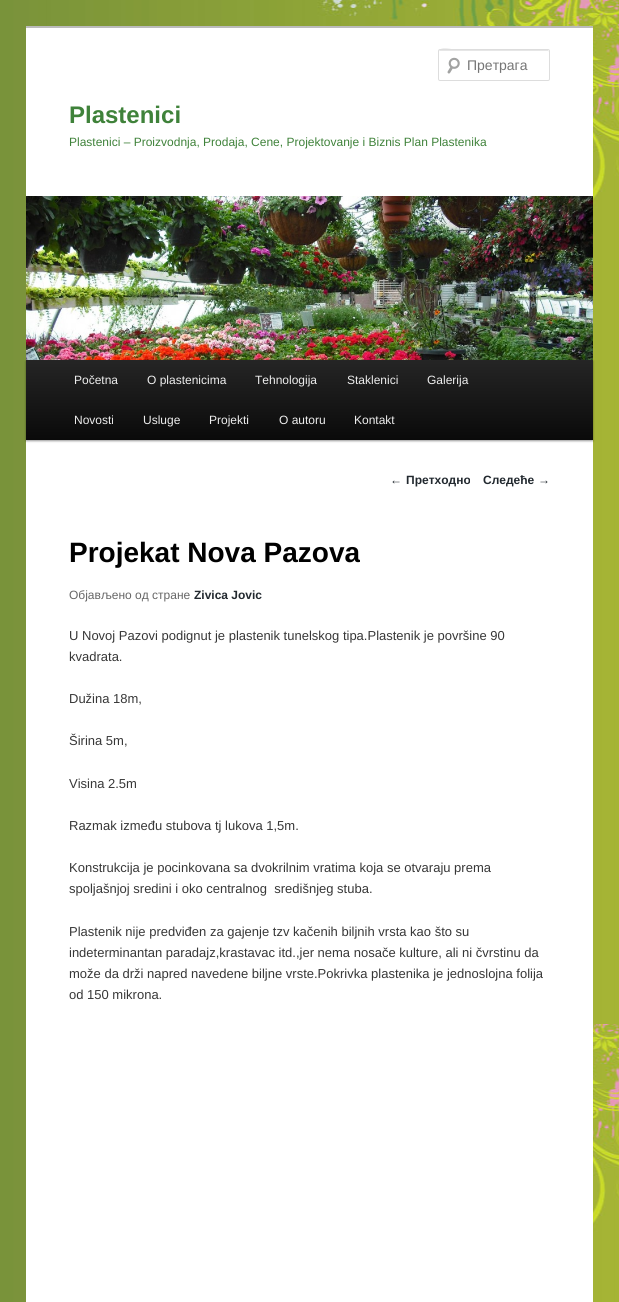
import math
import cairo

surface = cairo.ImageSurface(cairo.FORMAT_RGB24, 619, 1302)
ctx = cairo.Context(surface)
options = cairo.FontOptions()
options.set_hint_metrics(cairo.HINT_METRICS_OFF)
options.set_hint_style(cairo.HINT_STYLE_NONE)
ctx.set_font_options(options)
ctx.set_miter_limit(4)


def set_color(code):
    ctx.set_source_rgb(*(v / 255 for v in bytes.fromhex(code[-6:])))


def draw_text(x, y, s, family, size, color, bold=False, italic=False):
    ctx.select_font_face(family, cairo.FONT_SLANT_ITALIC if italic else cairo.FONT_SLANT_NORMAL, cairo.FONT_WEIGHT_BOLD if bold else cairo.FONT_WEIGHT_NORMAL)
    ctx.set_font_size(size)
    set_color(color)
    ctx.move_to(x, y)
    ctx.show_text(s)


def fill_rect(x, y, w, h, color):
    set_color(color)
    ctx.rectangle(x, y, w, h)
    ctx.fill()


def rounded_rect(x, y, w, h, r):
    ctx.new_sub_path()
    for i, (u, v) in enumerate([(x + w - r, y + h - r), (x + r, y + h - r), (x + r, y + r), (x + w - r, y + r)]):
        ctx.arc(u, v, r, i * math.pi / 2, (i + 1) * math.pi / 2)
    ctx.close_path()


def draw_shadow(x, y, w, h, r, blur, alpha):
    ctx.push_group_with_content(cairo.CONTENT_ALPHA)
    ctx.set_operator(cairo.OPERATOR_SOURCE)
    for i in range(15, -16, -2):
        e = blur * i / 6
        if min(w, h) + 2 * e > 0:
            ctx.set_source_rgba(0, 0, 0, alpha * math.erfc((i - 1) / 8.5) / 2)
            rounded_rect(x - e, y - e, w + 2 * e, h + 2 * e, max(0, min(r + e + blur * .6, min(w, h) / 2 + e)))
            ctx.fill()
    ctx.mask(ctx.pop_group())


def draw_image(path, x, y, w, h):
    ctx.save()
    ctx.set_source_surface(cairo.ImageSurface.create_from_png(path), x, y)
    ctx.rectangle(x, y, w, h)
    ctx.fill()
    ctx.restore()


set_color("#ffffff")
ctx.paint()
draw_image("assets/img1.png", 0, 0, 619, 1302)
fill_rect(26, 28, 567, 1274, "#ffffff")
fill_rect(26, 26, 567, 2, "#bbbbbb")
draw_image("assets/img2.png", 447, 57, 13, 17)
set_color("#e6e6e6")
ctx.new_path()
ctx.move_to(440, 51)
ctx.line_to(549, 51)
ctx.line_to(549, 52)
ctx.line_to(548, 50)
ctx.line_to(458, 50)
ctx.curve_to(454, 50, 439, 45, 439, 52)
ctx.curve_to(439, 51, 439, 51, 440, 51)
ctx.close_path()
ctx.fill()
rounded_rect(438.5, 49.5, 111, 31, 1.5)
set_color("#dddddd")
ctx.set_line_width(1)
ctx.stroke()
draw_text(467, 70, "Претрага", "Liberation Sans", 14, "#757575")
draw_text(69, 123, "Plastenici", "Liberation Sans", 24, "#3f823a", bold=True)
draw_text(69, 146, "Plastenici – Proizvodnja, Prodaja, Cene, Projektovanje i Biznis Plan Plastenika", "Liberation Sans", 12, "#3f823a")
set_color("#000000")
draw_shadow(26, 361, 567, 80, 0, 1, 0.4)
draw_image("assets/img3.png", 26, 196, 567, 164)
gradient = cairo.LinearGradient(310, 360, 310, 440)
gradient.add_color_stop_rgba(0, 0.145, 0.145, 0.145, 1)
gradient.add_color_stop_rgba(1, 0.039, 0.039, 0.039, 1)
ctx.set_source(gradient)
ctx.rectangle(26, 360, 567, 80)
ctx.fill()
draw_text(74, 384, "Početna", "Liberation Sans", 12, "#eeeeee")
draw_text(147, 384, "O plastenicima", "Liberation Sans", 12, "#eeeeee")
draw_text(255, 384, "Tehnologija", "Liberation Sans", 12, "#eeeeee")
draw_text(347, 384, "Staklenici", "Liberation Sans", 12, "#eeeeee")
draw_text(427, 384, "Galerija", "Liberation Sans", 12, "#eeeeee")
draw_text(74, 424, "Novosti", "Liberation Sans", 12, "#eeeeee")
draw_text(143, 424, "Usluge", "Liberation Sans", 12, "#eeeeee")
draw_text(209, 424, "Projekti", "Liberation Sans", 12, "#eeeeee")
draw_text(279, 424, "O autoru", "Liberation Sans", 12, "#eeeeee")
draw_text(354, 424, "Kontakt", "Liberation Sans", 12, "#eeeeee")
draw_text(390, 484, "←", "Liberation Sans", 12, "#22292f")
draw_text(406, 484, "Претходно", "Liberation Sans", 12, "#22292f", bold=True)
draw_text(483, 484, "Следеће", "Liberation Sans", 12, "#22292f", bold=True)
draw_text(538, 484, "→", "Liberation Sans", 12, "#22292f")
draw_text(69, 562, "Projekat Nova Pazova", "Liberation Sans", 28, "#000000", bold=True)
draw_text(69, 599, "Објављено од стране", "Liberation Sans", 12, "#666666")
draw_text(194, 599, "Zivica Jovic", "Liberation Sans", 12, "#22292f", bold=True)
draw_text(69, 640, "U Novoj Pazovi podignut je plastenik tunelskog tipa.Plastenik je površine 90", "Liberation Sans", 13, "#373737")
draw_text(69, 661, "kvadrata.", "Liberation Sans", 13, "#373737")
draw_text(69, 703, "Dužina 18m,", "Liberation Sans", 13, "#373737")
draw_text(69, 745, "Širina 5m,", "Liberation Sans", 13, "#373737")
draw_text(69, 788, "Visina 2.5m", "Liberation Sans", 13, "#373737")
draw_text(69, 830, "Razmak između stubova tj lukova 1,5m.", "Liberation Sans", 13, "#373737")
draw_text(69, 872, "Konstrukcija je pocinkovana sa dvokrilnim vratima koja se otvaraju prema", "Liberation Sans", 13, "#373737")
draw_text(69, 893, "spoljašnjoj sredini i oko centralnog  središnjeg stuba.", "Liberation Sans", 13, "#373737")
draw_text(69, 936, "Plastenik nije predviđen za gajenje tzv kačenih biljnih vrsta kao što su", "Liberation Sans", 13, "#373737")
draw_text(69, 957, "indeterminantan paradajz,krastavac itd.,jer nema nosače kulture, ali ni čvrstinu da", "Liberation Sans", 13, "#373737")
draw_text(69, 978, "može da drži napred navedene biljne vrste.Pokrivka plastenika je jednoslojna folija", "Liberation Sans", 13, "#373737")
draw_text(69, 999, "od 150 mikrona.", "Liberation Sans", 13, "#373737")
surface.write_to_png("output.png")
